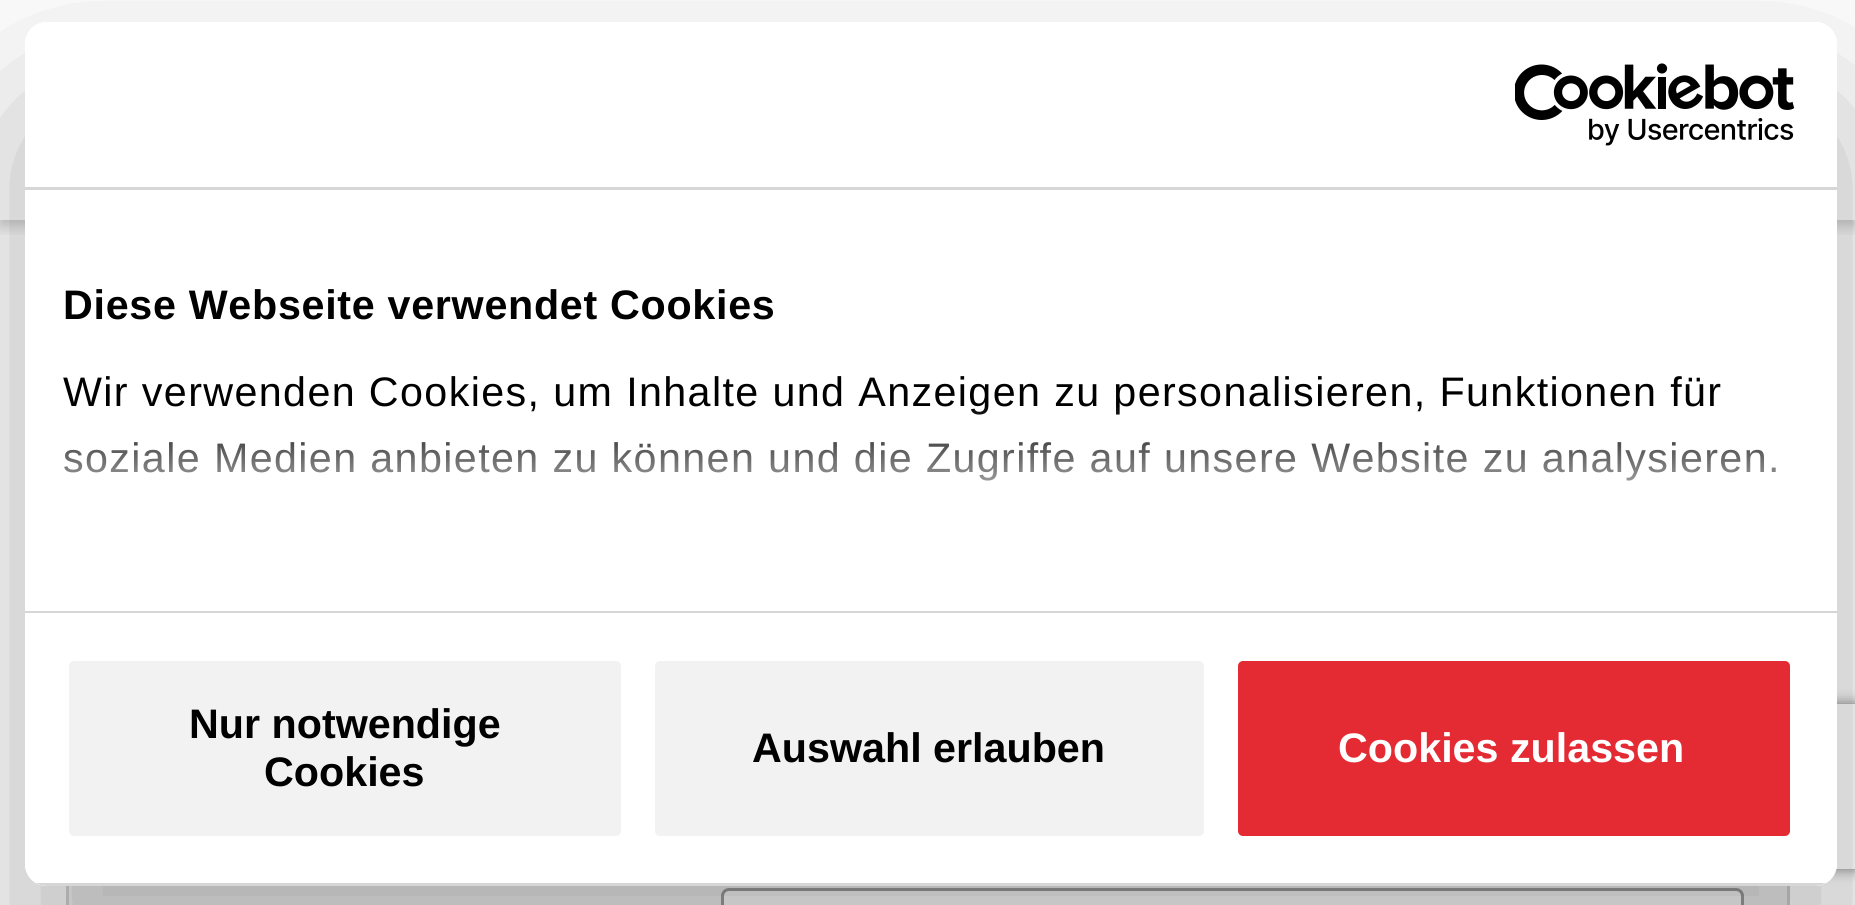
import math
import cairo

surface = cairo.ImageSurface(cairo.FORMAT_RGB24, 1855, 905)
ctx = cairo.Context(surface)
options = cairo.FontOptions()
options.set_hint_metrics(cairo.HINT_METRICS_OFF)
options.set_hint_style(cairo.HINT_STYLE_NONE)
ctx.set_font_options(options)
ctx.set_miter_limit(4)


def set_color(code):
    ctx.set_source_rgb(*(v / 255 for v in bytes.fromhex(code[-6:])))


def draw_text(x, y, s, family, size, color, bold=False, italic=False):
    ctx.select_font_face(family, cairo.FONT_SLANT_ITALIC if italic else cairo.FONT_SLANT_NORMAL, cairo.FONT_WEIGHT_BOLD if bold else cairo.FONT_WEIGHT_NORMAL)
    ctx.set_font_size(size)
    set_color(color)
    ctx.move_to(x, y)
    ctx.show_text(s)


def draw_spaced(x, y, s, letter, word):
    ctx.move_to(x, y)
    for ch in s:
        ctx.show_text(ch)
        ctx.rel_move_to(letter + word * (ch == ' '), 0)


def fill_rect(x, y, w, h, color):
    set_color(color)
    ctx.rectangle(x, y, w, h)
    ctx.fill()


def rounded_rect(x, y, w, h, r):
    ctx.new_sub_path()
    for i, (u, v) in enumerate([(x + w - r, y + h - r), (x + r, y + h - r), (x + r, y + r), (x + w - r, y + r)]):
        ctx.arc(u, v, r, i * math.pi / 2, (i + 1) * math.pi / 2)
    ctx.close_path()


def draw_shadow(x, y, w, h, r, blur, alpha):
    ctx.push_group_with_content(cairo.CONTENT_ALPHA)
    ctx.set_operator(cairo.OPERATOR_SOURCE)
    for i in range(15, -16, -2):
        e = blur * i / 6
        if min(w, h) + 2 * e > 0:
            ctx.set_source_rgba(0, 0, 0, alpha * math.erfc((i - 1) / 8.5) / 2)
            rounded_rect(x - e, y - e, w + 2 * e, h + 2 * e, max(0, min(r + e + blur * .6, min(w, h) / 2 + e)))
            ctx.fill()
    ctx.mask(ctx.pop_group())


def draw_image(path, x, y, w, h):
    ctx.save()
    ctx.set_source_surface(cairo.ImageSurface.create_from_png(path), x, y)
    ctx.rectangle(x, y, w, h)
    ctx.fill()
    ctx.restore()


set_color("#ffffff")
ctx.paint()
ctx.save()
ctx.rectangle(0, 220, 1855, 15)
ctx.clip()
set_color("#000000")
draw_shadow(0, 6, 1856, 220, 0, 7, 0.2)
ctx.restore()
fill_rect(69, 886, 1718, 19, "#f4f4f4")
ctx.rectangle(67.5, 716.5, 1721, 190)
set_color("#d4d4d4")
ctx.set_line_width(3)
ctx.stroke()
set_color("#ffffff")
rounded_rect(722.5, 889.5, 1020, 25, 6.5)
ctx.fill_preserve()
set_color("#a0a0a0")
ctx.stroke()
ctx.save()
ctx.set_fill_rule(cairo.FILL_RULE_EVEN_ODD)
ctx.new_path()
ctx.move_to(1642, 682)
ctx.line_to(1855, 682)
ctx.line_to(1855, 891)
ctx.line_to(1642, 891)
ctx.close_path()
ctx.move_to(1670, 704)
ctx.line_to(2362, 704)
ctx.curve_to(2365.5, 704, 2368, 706.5, 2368, 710)
ctx.line_to(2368, 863)
ctx.curve_to(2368, 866.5, 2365.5, 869, 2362, 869)
ctx.line_to(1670, 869)
ctx.curve_to(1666.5, 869, 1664, 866.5, 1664, 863)
ctx.line_to(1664, 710)
ctx.curve_to(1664, 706.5, 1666.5, 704, 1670, 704)
ctx.close_path()
ctx.clip()
set_color("#808080")
draw_shadow(1664, 704, 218, 165, 6, 7, 1)
ctx.restore()
ctx.save()
ctx.set_fill_rule(cairo.FILL_RULE_EVEN_ODD)
ctx.new_path()
ctx.move_to(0, 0)
ctx.line_to(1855, 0)
ctx.line_to(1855, 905)
ctx.line_to(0, 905)
ctx.close_path()
ctx.move_to(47, 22)
ctx.line_to(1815, 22)
ctx.curve_to(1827, 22, 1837, 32, 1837, 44)
ctx.line_to(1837, 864)
ctx.curve_to(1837, 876, 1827, 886, 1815, 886)
ctx.line_to(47, 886)
ctx.curve_to(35, 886, 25, 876, 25, 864)
ctx.line_to(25, 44)
ctx.curve_to(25, 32, 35, 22, 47, 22)
ctx.close_path()
ctx.clip()
set_color("#000000")
draw_shadow(25, 110, 1812, 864, 22, 93.5, 0.3)
ctx.restore()
set_color("#ffffff")
rounded_rect(25, 22, 1812, 864, 22)
ctx.fill()
fill_rect(25, 187, 1812, 3, "#d6d6d6")
draw_image("assets/img1.png", 1515, 63, 280, 83)
fill_rect(25, 611, 1812, 2, "#d6d6d6")
ctx.select_font_face("Liberation Sans", cairo.FONT_SLANT_NORMAL, cairo.FONT_WEIGHT_BOLD)
ctx.set_font_size(41.25)
set_color("#000000")
draw_spaced(63, 319, "Diese Webseite verwendet Cookies", 0.7, 0)
ctx.select_font_face("Liberation Sans")
draw_spaced(63, 406, "Wir verwenden Cookies, um Inhalte und Anzeigen zu personalisieren, Funktionen für", 1.38, 0)
draw_spaced(63, 472, "soziale Medien anbieten zu können und die Zugriffe auf unsere Website zu analysieren.", 1.38, 0)
gradient = cairo.LinearGradient(912, 611, 912, 404)
gradient.add_color_stop_rgba(0, 1, 1, 1, 1)
gradient.add_color_stop_rgba(0.5, 1, 1, 1, 0.8)
gradient.add_color_stop_rgba(1, 1, 1, 1, 0)
ctx.set_source(gradient)
ctx.rectangle(64, 407, 1712, 74)
ctx.fill()
ctx.save()
rounded_rect(25, 22, 1812, 864, 22)
ctx.clip()
fill_rect(36, 883, 1790, 3, "#d6d6d6")
ctx.restore()
set_color("#f2f2f2")
rounded_rect(66, 658, 558, 181, 8)
ctx.fill_preserve()
set_color("#ffffff")
ctx.set_line_width(6)
ctx.stroke()
draw_text(189, 738, "Nur notwendige", "Liberation Sans", 41.25, "#000000", bold=True)
draw_text(264, 786, "Cookies", "Liberation Sans", 41.25, "#000000", bold=True)
set_color("#f2f2f2")
rounded_rect(652, 658, 555, 181, 8)
ctx.fill_preserve()
set_color("#ffffff")
ctx.stroke()
draw_text(752, 762, "Auswahl erlauben", "Liberation Sans", 41.25, "#000000", bold=True)
set_color("#e42b33")
rounded_rect(1235, 658, 558, 181, 8)
ctx.fill_preserve()
set_color("#ffffff")
ctx.stroke()
draw_text(1338, 762, "Cookies zulassen", "Liberation Sans", 41.25, "#ffffff", bold=True)
surface.write_to_png("output.png")
